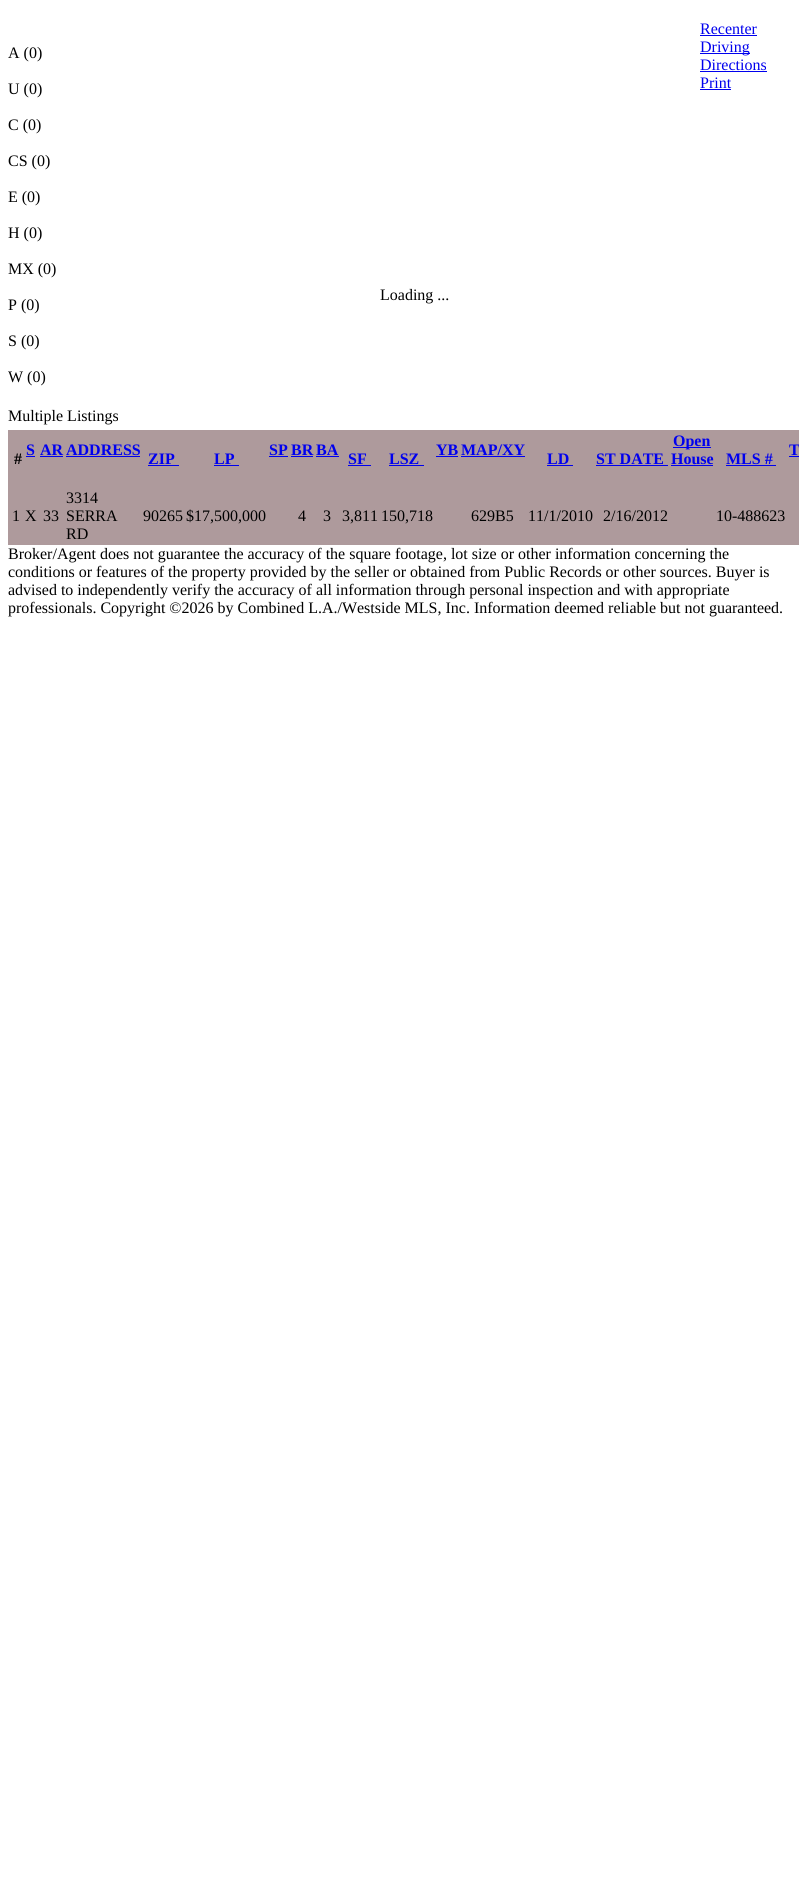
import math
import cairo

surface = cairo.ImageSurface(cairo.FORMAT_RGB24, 799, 1891)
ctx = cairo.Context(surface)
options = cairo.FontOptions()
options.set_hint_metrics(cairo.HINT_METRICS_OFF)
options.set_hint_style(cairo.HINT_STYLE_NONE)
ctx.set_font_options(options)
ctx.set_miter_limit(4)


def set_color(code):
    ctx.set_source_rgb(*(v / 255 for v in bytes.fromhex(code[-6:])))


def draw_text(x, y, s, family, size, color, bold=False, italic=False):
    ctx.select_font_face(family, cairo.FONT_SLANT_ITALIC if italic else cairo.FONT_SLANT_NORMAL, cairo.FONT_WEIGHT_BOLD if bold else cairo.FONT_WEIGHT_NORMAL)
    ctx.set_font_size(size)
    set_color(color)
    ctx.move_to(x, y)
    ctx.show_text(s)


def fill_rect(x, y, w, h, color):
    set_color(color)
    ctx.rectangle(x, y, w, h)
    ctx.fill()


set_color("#ffffff")
ctx.paint()
draw_text(8, 58, "A (0)", "Liberation Serif", 16, "#000000")
draw_text(8, 94, "U (0)", "Liberation Serif", 16, "#000000")
draw_text(8, 130, "C (0)", "Liberation Serif", 16, "#000000")
draw_text(8, 166, "CS (0)", "Liberation Serif", 16, "#000000")
draw_text(8, 202, "E (0)", "Liberation Serif", 16, "#000000")
draw_text(8, 238, "H (0)", "Liberation Serif", 16, "#000000")
draw_text(8, 274, "MX (0)", "Liberation Serif", 16, "#000000")
draw_text(8, 310, "P (0)", "Liberation Serif", 16, "#000000")
draw_text(8, 346, "S (0)", "Liberation Serif", 16, "#000000")
draw_text(8, 382, "W (0)", "Liberation Serif", 16, "#000000")
draw_text(8, 421, "Multiple Listings", "Liberation Serif", 16, "#000000")
draw_text(380, 300, "Loading ...", "Liberation Serif", 16, "#000000")
draw_text(700, 34, "Recenter", "Liberation Serif", 16, "#0000ee")
fill_rect(700, 35, 57, 1, "#0000ee")
fill_rect(700, 53, 50, 1, "#0000ee")
draw_text(700, 52, "Driving", "Liberation Serif", 16, "#0000ee")
draw_text(700, 70, "Directions", "Liberation Serif", 16, "#0000ee")
fill_rect(700, 71, 67, 1, "#0000ee")
draw_text(700, 88, "Print", "Liberation Serif", 16, "#0000ee")
fill_rect(700, 89, 31, 1, "#0000ee")
fill_rect(8, 430, 791, 115, "#ae9a9c")
draw_text(26, 455, "S", "Liberation Serif", 16, "#0000ee", bold=True)
fill_rect(26, 456, 9, 1, "#0000ee")
draw_text(40, 455, "AR", "Liberation Serif", 16, "#0000ee", bold=True)
fill_rect(40, 456, 23, 1, "#0000ee")
draw_text(66, 455, "ADDRESS", "Liberation Serif", 16, "#0000ee", bold=True)
fill_rect(66, 456, 74, 1, "#0000ee")
draw_text(269, 455, "SP", "Liberation Serif", 16, "#0000ee", bold=True)
fill_rect(269, 456, 19, 1, "#0000ee")
draw_text(291, 455, "BR", "Liberation Serif", 16, "#0000ee", bold=True)
fill_rect(291, 456, 22, 1, "#0000ee")
draw_text(316, 455, "BA", "Liberation Serif", 16, "#0000ee", bold=True)
fill_rect(316, 456, 23, 1, "#0000ee")
draw_text(436, 455, "YB", "Liberation Serif", 16, "#0000ee", bold=True)
fill_rect(436, 456, 22, 1, "#0000ee")
draw_text(461, 455, "MAP/XY", "Liberation Serif", 16, "#0000ee", bold=True)
fill_rect(461, 456, 64, 1, "#0000ee")
fill_rect(673, 447, 38, 1, "#0000ee")
draw_text(673, 446, "Open", "Liberation Serif", 16, "#0000ee", bold=True)
draw_text(671, 464, "House", "Liberation Serif", 16, "#0000ee", bold=True)
fill_rect(671, 465, 42, 1, "#0000ee")
draw_text(789, 455, "T", "Liberation Serif", 16, "#0000ee", bold=True)
fill_rect(789, 456, 10, 1, "#0000ee")
draw_text(14, 464, "#", "Liberation Serif", 16, "#000000", bold=True)
draw_text(148, 464, "ZIP", "Liberation Serif", 16, "#0000ee", bold=True)
fill_rect(148, 465, 31, 1, "#0000ee")
draw_text(214, 464, "LP", "Liberation Serif", 16, "#0000ee", bold=True)
fill_rect(214, 465, 25, 1, "#0000ee")
draw_text(348, 464, "SF", "Liberation Serif", 16, "#0000ee", bold=True)
fill_rect(348, 465, 23, 1, "#0000ee")
draw_text(389, 464, "LSZ", "Liberation Serif", 16, "#0000ee", bold=True)
fill_rect(389, 465, 35, 1, "#0000ee")
draw_text(547, 464, "LD", "Liberation Serif", 16, "#0000ee", bold=True)
fill_rect(547, 465, 26, 1, "#0000ee")
draw_text(596, 464, "ST DATE", "Liberation Serif", 16, "#0000ee", bold=True)
fill_rect(596, 465, 72, 1, "#0000ee")
draw_text(726, 464, "MLS #", "Liberation Serif", 16, "#0000ee", bold=True)
fill_rect(726, 465, 50, 1, "#0000ee")
draw_text(12, 521, "1", "Liberation Serif", 16, "#000000")
draw_text(25, 521, "X", "Liberation Serif", 16, "#000000")
draw_text(43, 521, "33", "Liberation Serif", 16, "#000000")
draw_text(66, 503, "3314", "Liberation Serif", 16, "#000000")
draw_text(66, 521, "SERRA", "Liberation Serif", 16, "#000000")
draw_text(66, 539, "RD", "Liberation Serif", 16, "#000000")
draw_text(143, 521, "90265", "Liberation Serif", 16, "#000000")
draw_text(186, 521, "$17,500,000", "Liberation Serif", 16, "#000000")
draw_text(298, 521, "4", "Liberation Serif", 16, "#000000")
draw_text(323, 521, "3", "Liberation Serif", 16, "#000000")
draw_text(342, 521, "3,811", "Liberation Serif", 16, "#000000")
draw_text(381, 521, "150,718", "Liberation Serif", 16, "#000000")
draw_text(471, 521, "629B5", "Liberation Serif", 16, "#000000")
draw_text(528, 521, "11/1/2010", "Liberation Serif", 16, "#000000")
draw_text(603, 521, "2/16/2012", "Liberation Serif", 16, "#000000")
draw_text(716, 521, "10-488623", "Liberation Serif", 16, "#000000")
draw_text(8, 559, "Broker/Agent does not guarantee the accuracy of the square footage, lot size or other information concerning the", "Liberation Serif", 16, "#000000")
draw_text(8, 577, "conditions or features of the property provided by the seller or obtained from Public Records or other sources. Buyer is", "Liberation Serif", 16, "#000000")
draw_text(8, 595, "advised to independently verify the accuracy of all information through personal inspection and with appropriate", "Liberation Serif", 16, "#000000")
draw_text(8, 613, "professionals. Copyright ©2026 by Combined L.A./Westside MLS, Inc. Information deemed reliable but not guaranteed.", "Liberation Serif", 16, "#000000")
surface.write_to_png("output.png")
